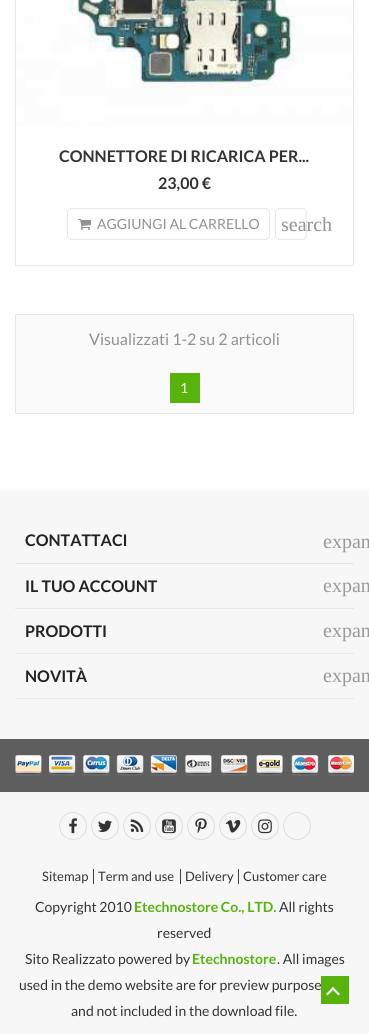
import math
import cairo

surface = cairo.ImageSurface(cairo.FORMAT_RGB24, 369, 1034)
ctx = cairo.Context(surface)
options = cairo.FontOptions()
options.set_hint_metrics(cairo.HINT_METRICS_OFF)
options.set_hint_style(cairo.HINT_STYLE_NONE)
ctx.set_font_options(options)
ctx.set_miter_limit(4)


def set_color(code):
    ctx.set_source_rgb(*(v / 255 for v in bytes.fromhex(code[-6:])))


def draw_text(x, y, s, family, size, color, bold=False, italic=False):
    ctx.select_font_face(family, cairo.FONT_SLANT_ITALIC if italic else cairo.FONT_SLANT_NORMAL, cairo.FONT_WEIGHT_BOLD if bold else cairo.FONT_WEIGHT_NORMAL)
    ctx.set_font_size(size)
    set_color(color)
    ctx.move_to(x, y)
    ctx.show_text(s)


def fill_rect(x, y, w, h, color):
    set_color(color)
    ctx.rectangle(x, y, w, h)
    ctx.fill()


def rounded_rect(x, y, w, h, r):
    ctx.new_sub_path()
    for i, (u, v) in enumerate([(x + w - r, y + h - r), (x + r, y + h - r), (x + r, y + r), (x + w - r, y + r)]):
        ctx.arc(u, v, r, i * math.pi / 2, (i + 1) * math.pi / 2)
    ctx.close_path()


def draw_image(path, x, y, w, h):
    ctx.save()
    ctx.set_source_surface(cairo.ImageSurface.create_from_png(path), x, y)
    ctx.rectangle(x, y, w, h)
    ctx.fill()
    ctx.restore()


set_color("#ffffff")
ctx.paint()
ctx.rectangle(15.5, -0.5, 338, 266)
set_color("#e7e7e7")
ctx.set_line_width(1)
ctx.stroke()
draw_image("assets/img1.png", 16, 0, 337, 137)
draw_text(59, 162, "CONNETTORE DI RICARICA PER...", "Lato", 16, "#333333", bold=True)
draw_text(158, 189, "23,00 €", "Lato", 16, "#333333", bold=True)
rounded_rect(67.5, 208.5, 202, 31, 4.5)
set_color("#e7e7e7")
ctx.stroke()
draw_image("assets/img2.png", 78, 219, 13, 11)
draw_text(97, 229, "AGGIUNGI AL CARRELLO", "Lato", 14, "#929292")
rounded_rect(275.5, 208.5, 31, 31, 4.5)
set_color("#e7e7e7")
ctx.stroke()
draw_text(281, 231, "search", "Liberation Serif", 20, "#929292")
set_color("#fafafa")
ctx.rectangle(15.5, 314.5, 338, 99)
ctx.fill_preserve()
set_color("#e7e7e7")
ctx.stroke()
draw_text(89, 345, "Visualizzati 1-2 su 2 articoli", "Lato", 16, "#929292")
fill_rect(170, 373, 30, 30, "#57b30c")
draw_text(180, 393, "1", "Lato", 14, "#ffffff")
fill_rect(0, 490, 369, 544, "#f7f7f7")
fill_rect(15, 563, 339, 1, "#e7e7e7")
draw_text(25, 546, "CONTATTACI", "Lato", 16, "#222222", bold=True)
draw_text(323, 548, "expan", "Liberation Serif", 20, "#999999")
fill_rect(15, 608, 339, 1, "#e7e7e7")
draw_text(25, 592, "IL TUO ACCOUNT", "Lato", 16, "#222222", bold=True)
draw_text(323, 592, "expan", "Liberation Serif", 20, "#999999")
fill_rect(15, 653, 339, 1, "#e7e7e7")
draw_text(25, 637, "PRODOTTI", "Lato", 16, "#222222", bold=True)
draw_text(323, 637, "expan", "Liberation Serif", 20, "#999999")
fill_rect(15, 698, 339, 1, "#e7e7e7")
draw_text(25, 682, "NOVITÀ", "Lato", 16, "#222222", bold=True)
draw_text(323, 682, "expan", "Liberation Serif", 20, "#999999")
fill_rect(0, 739, 369, 53, "#5e5e5e")
draw_image("assets/img3.png", 15, 755, 339, 21)
ctx.arc(73, 826, 13.5, 0, 2 * math.pi)
set_color("#dddddd")
ctx.stroke()
draw_image("assets/img4.png", 69, 818, 8, 16)
ctx.arc(105, 826, 13.5, 0, 2 * math.pi)
ctx.stroke()
draw_image("assets/img5.png", 98, 820, 14, 12)
ctx.arc(137, 826, 13.5, 0, 2 * math.pi)
ctx.stroke()
draw_image("assets/img6.png", 130, 819, 14, 13)
ctx.arc(169, 826, 13.5, 0, 2 * math.pi)
ctx.stroke()
draw_image("assets/img7.png", 162, 819, 14, 15)
ctx.arc(201, 826, 13.5, 0, 2 * math.pi)
ctx.stroke()
draw_image("assets/img8.png", 195, 818, 12, 16)
ctx.arc(233, 826, 13.5, 0, 2 * math.pi)
ctx.stroke()
draw_image("assets/img9.png", 225, 820, 16, 13)
ctx.arc(265, 826, 13.5, 0, 2 * math.pi)
ctx.stroke()
draw_image("assets/img10.png", 258, 819, 14, 15)
ctx.arc(297, 826, 13.5, 0, 2 * math.pi)
ctx.stroke()
draw_text(42, 881, "Sitemap", "Lato", 13, "#333333")
fill_rect(93, 869, 1, 15, "#3f3f3f")
draw_text(98, 881, "Term and use", "Lato", 13, "#333333")
fill_rect(180, 869, 1, 15, "#3f3f3f")
draw_text(185, 881, "Delivery", "Lato", 13, "#333333")
fill_rect(238, 869, 1, 15, "#3f3f3f")
draw_text(243, 881, "Customer care", "Lato", 13, "#333333")
draw_text(35, 912, "Copyright 2010", "Lato", 14, "#333333")
draw_text(134, 912, "Etechnostore Co., LTD.", "Lato", 14, "#57b30c", bold=True)
draw_text(279, 912, "All rights", "Lato", 14, "#333333")
draw_text(157, 938, "reserved", "Lato", 14, "#333333")
draw_text(25, 964, "Sito Realizzato powered by", "Lato", 14, "#333333")
draw_text(192, 964, "Etechnostore", "Lato", 14, "#57b30c", bold=True)
draw_text(277, 964, ". All images", "Lato", 14, "#333333")
draw_text(19, 990, "used in the demo website are for preview purpose", "Lato", 14, "#333333")
draw_text(71, 1016, "and not included in the download file.", "Lato", 14, "#333333")
fill_rect(321, 976, 28, 28, "#57b30c")
set_color("#ffffff")
ctx.new_path()
ctx.move_to(326, 994)
ctx.line_to(333, 987)
ctx.line_to(334.5, 988.5)
ctx.line_to(327.5, 995.5)
ctx.close_path()
ctx.fill()
ctx.new_path()
ctx.move_to(331.5, 988.5)
ctx.line_to(333, 987)
ctx.line_to(340, 994)
ctx.line_to(338.5, 995.5)
ctx.close_path()
ctx.fill()
surface.write_to_png("output.png")
